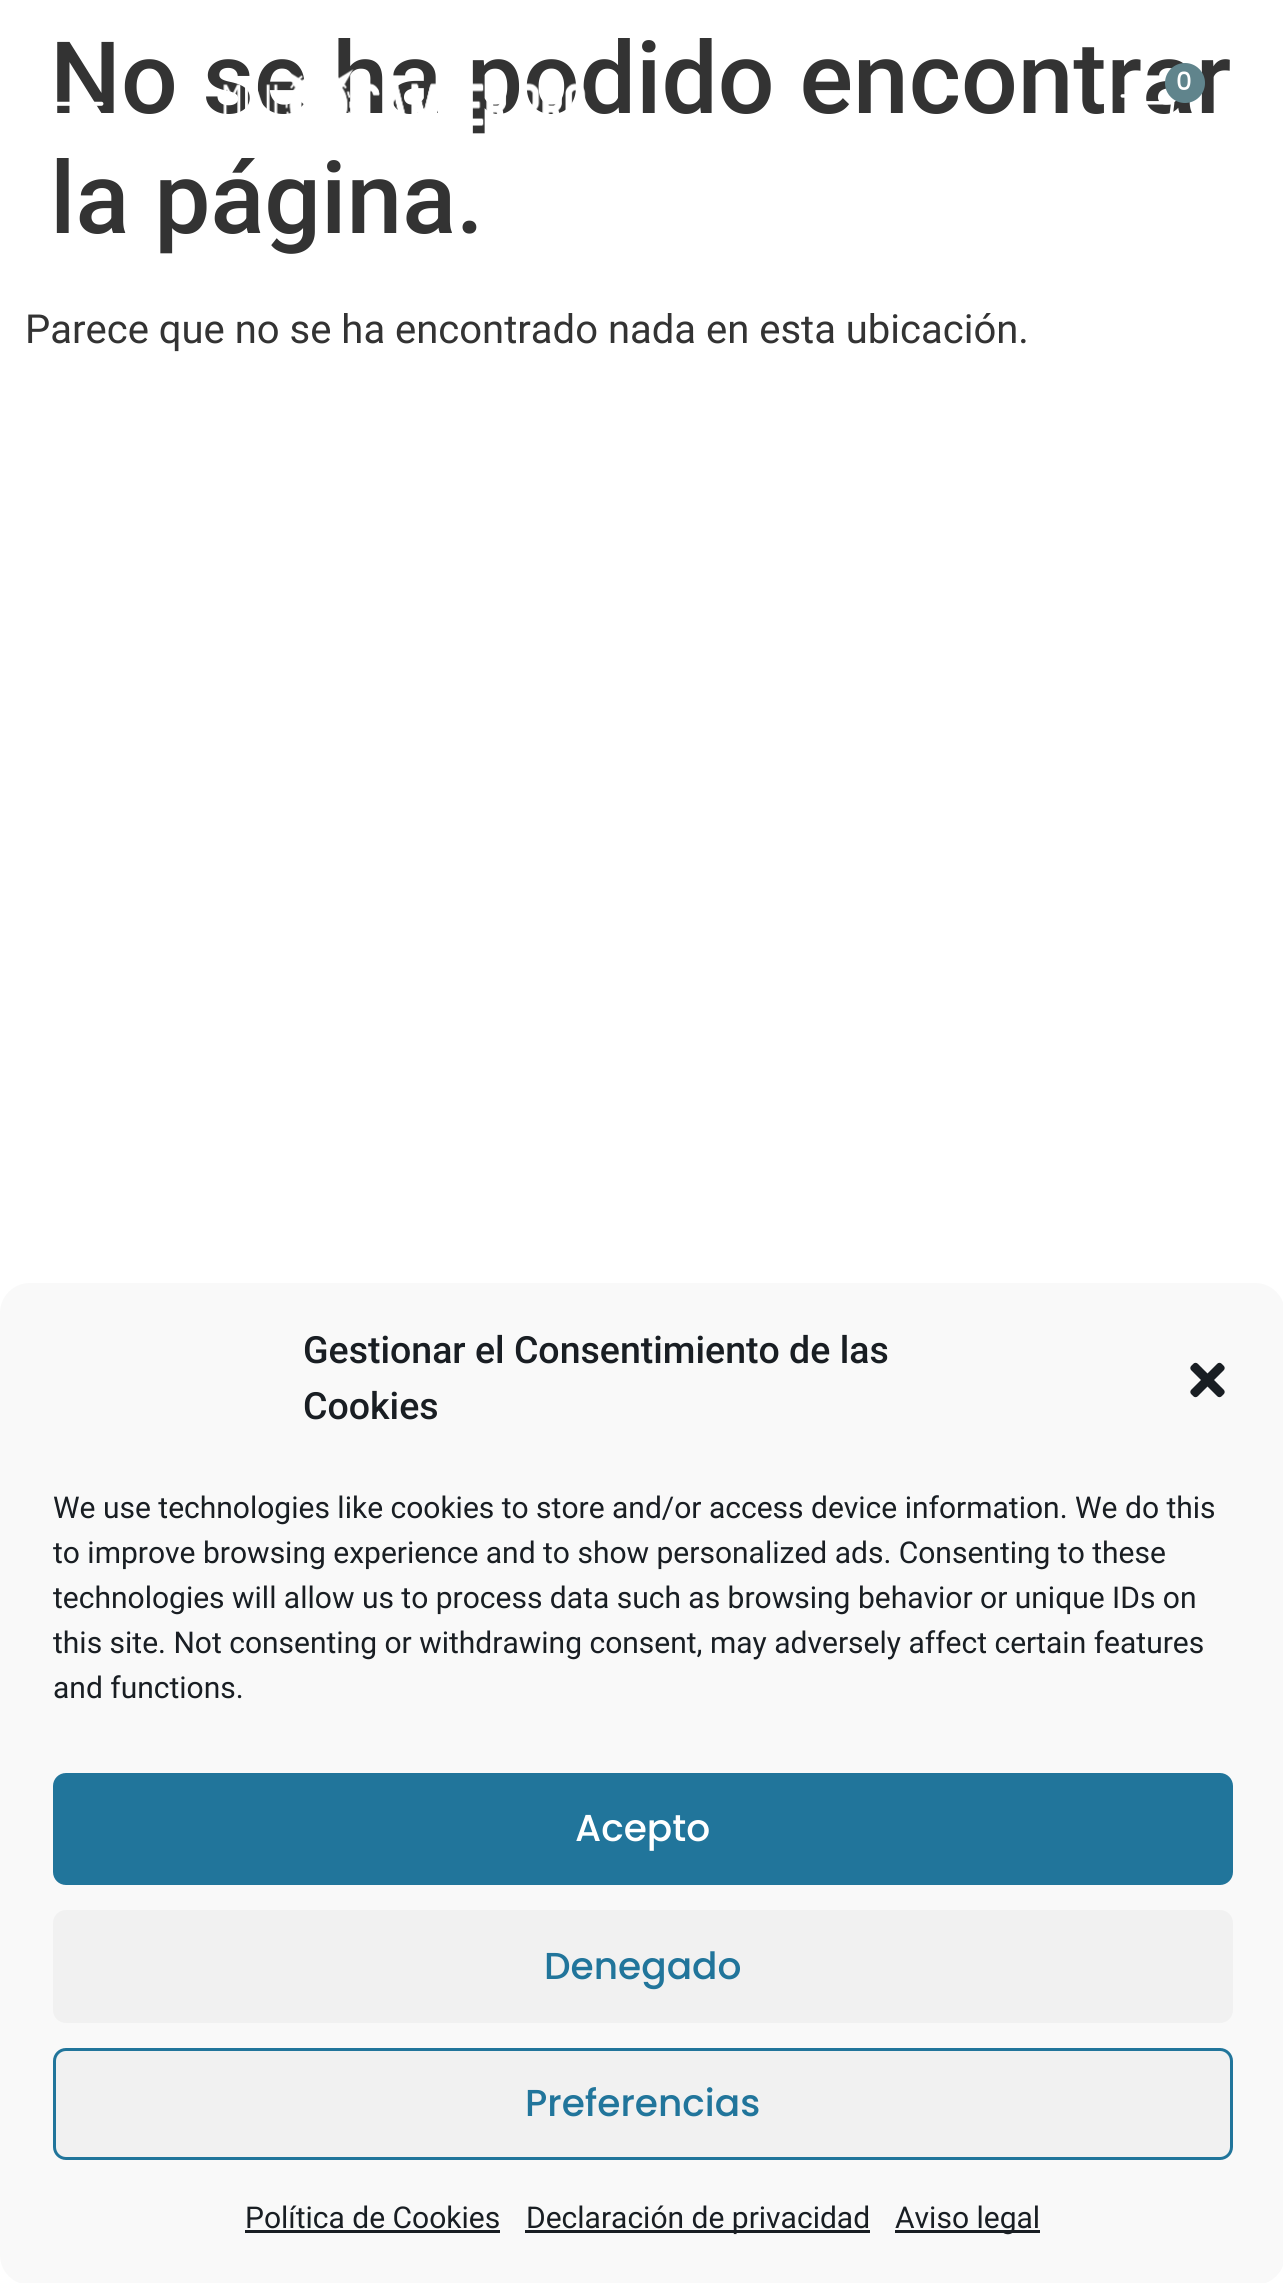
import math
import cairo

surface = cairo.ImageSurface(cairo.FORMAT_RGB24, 1283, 2283)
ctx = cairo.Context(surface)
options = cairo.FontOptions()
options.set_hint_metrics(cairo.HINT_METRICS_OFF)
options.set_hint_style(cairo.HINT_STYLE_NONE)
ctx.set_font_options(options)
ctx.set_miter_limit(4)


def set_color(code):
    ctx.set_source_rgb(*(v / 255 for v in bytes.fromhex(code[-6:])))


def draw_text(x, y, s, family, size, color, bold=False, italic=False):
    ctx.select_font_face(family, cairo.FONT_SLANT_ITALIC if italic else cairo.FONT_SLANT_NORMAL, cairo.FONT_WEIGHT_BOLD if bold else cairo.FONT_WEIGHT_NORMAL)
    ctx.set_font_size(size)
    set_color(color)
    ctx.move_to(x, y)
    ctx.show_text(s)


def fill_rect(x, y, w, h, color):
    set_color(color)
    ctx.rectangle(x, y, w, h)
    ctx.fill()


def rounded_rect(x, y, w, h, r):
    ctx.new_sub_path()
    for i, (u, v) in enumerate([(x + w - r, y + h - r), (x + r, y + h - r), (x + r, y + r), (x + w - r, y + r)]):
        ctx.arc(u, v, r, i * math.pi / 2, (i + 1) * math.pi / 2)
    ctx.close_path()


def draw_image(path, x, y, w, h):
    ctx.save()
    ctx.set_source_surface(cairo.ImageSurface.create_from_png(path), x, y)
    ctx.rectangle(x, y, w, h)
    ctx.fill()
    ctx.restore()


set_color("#ffffff")
ctx.paint()
draw_text(50, 113, "No se ha podido encontrar", "Roboto Medium", 100, "#333333")
draw_text(50, 233, "la página.", "Roboto Medium", 100, "#333333")
draw_text(25, 343, "Parece que no se ha encontrado nada en esta ubicación.", "Roboto", 40, "#333333")
draw_image("assets/img1.png", 223, 69, 363, 57)
draw_image("assets/img2.png", 1120, 94, 55, 20)
set_color("#60848c")
ctx.arc(1185, 83, 20, 0, 2 * math.pi)
ctx.fill()
draw_text(1176, 90, "0", "Poppins Medium", 25, "#ffffff")
draw_image("assets/img3.png", 57, 101, 47, 5)
set_color("#f9f9f9")
rounded_rect(0, 1283, 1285, 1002, 30)
ctx.fill()
draw_text(303, 1363, "Gestionar el Consentimiento de las", "Roboto Medium", 37.5, "#191e23")
draw_text(303, 1419, "Cookies", "Roboto Medium", 37.5, "#191e23")
draw_image("assets/img4.png", 1190, 1362, 35, 36)
draw_text(53, 1518, "We use technologies like cookies to store and/or access device information. We do this", "Roboto", 30, "#191e23")
ctx.save()
ctx.rectangle(53, 1485, 1180, 238)
ctx.clip()
draw_text(53, 1563, "to improve browsing experience and to show personalized ads. Consenting to these", "Roboto", 30, "#191e23")
draw_text(53, 1608, "technologies will allow us to process data such as browsing behavior or unique IDs on", "Roboto", 30, "#191e23")
draw_text(53, 1653, "this site. Not consenting or withdrawing consent, may adversely affect certain features", "Roboto", 30, "#191e23")
ctx.restore()
draw_text(53, 1698, "and functions.", "Roboto", 30, "#191e23")
set_color("#21759b")
rounded_rect(54.5, 1774.5, 1177, 109, 11.5)
ctx.fill_preserve()
ctx.set_line_width(3)
ctx.stroke()
draw_text(575, 1841, "Acepto", "Poppins Medium", 37.5, "#ffffff")
set_color("#f1f1f1")
rounded_rect(53, 1910, 1180, 113, 13)
ctx.fill()
draw_text(544, 1979, "Denegado", "Poppins Medium", 37.5, "#21759b")
set_color("#f1f1f1")
rounded_rect(54.5, 2049.5, 1177, 109, 11.5)
ctx.fill_preserve()
set_color("#21759b")
ctx.stroke()
draw_text(525, 2116, "Preferencias", "Poppins Medium", 37.5, "#21759b")
draw_text(245, 2228, "Política de Cookies", "Roboto", 30, "#191e23")
fill_rect(245, 2230, 255, 3, "#191e23")
fill_rect(525, 2230, 345, 3, "#191e23")
draw_text(526, 2228, "Declaración de privacidad", "Roboto", 30, "#191e23")
fill_rect(895, 2230, 145, 3, "#191e23")
draw_text(895, 2228, "Aviso legal", "Roboto", 30, "#191e23")
surface.write_to_png("output.png")
